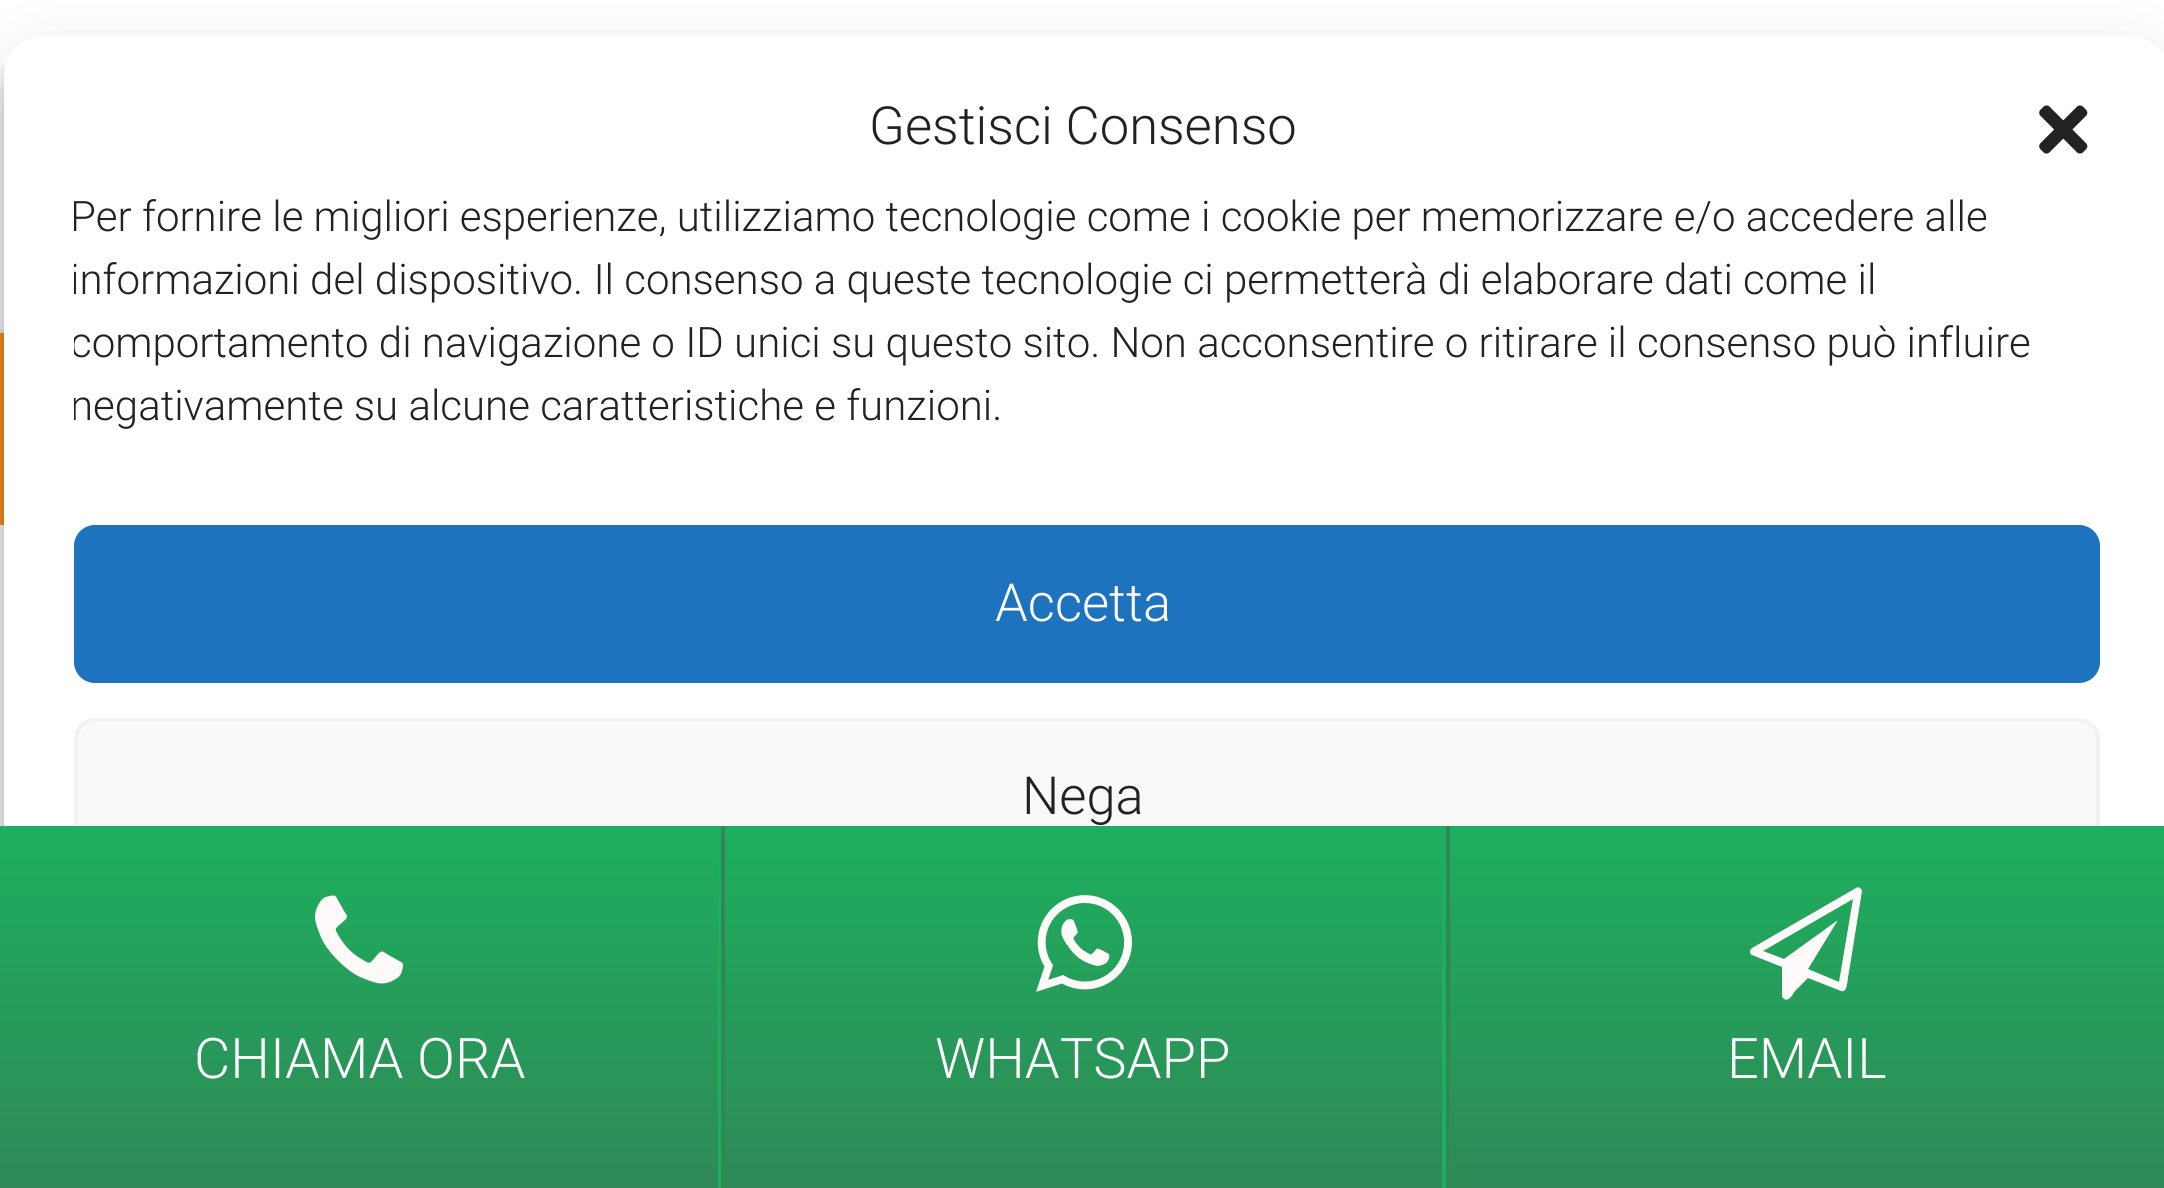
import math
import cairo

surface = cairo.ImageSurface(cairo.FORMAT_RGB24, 2164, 1188)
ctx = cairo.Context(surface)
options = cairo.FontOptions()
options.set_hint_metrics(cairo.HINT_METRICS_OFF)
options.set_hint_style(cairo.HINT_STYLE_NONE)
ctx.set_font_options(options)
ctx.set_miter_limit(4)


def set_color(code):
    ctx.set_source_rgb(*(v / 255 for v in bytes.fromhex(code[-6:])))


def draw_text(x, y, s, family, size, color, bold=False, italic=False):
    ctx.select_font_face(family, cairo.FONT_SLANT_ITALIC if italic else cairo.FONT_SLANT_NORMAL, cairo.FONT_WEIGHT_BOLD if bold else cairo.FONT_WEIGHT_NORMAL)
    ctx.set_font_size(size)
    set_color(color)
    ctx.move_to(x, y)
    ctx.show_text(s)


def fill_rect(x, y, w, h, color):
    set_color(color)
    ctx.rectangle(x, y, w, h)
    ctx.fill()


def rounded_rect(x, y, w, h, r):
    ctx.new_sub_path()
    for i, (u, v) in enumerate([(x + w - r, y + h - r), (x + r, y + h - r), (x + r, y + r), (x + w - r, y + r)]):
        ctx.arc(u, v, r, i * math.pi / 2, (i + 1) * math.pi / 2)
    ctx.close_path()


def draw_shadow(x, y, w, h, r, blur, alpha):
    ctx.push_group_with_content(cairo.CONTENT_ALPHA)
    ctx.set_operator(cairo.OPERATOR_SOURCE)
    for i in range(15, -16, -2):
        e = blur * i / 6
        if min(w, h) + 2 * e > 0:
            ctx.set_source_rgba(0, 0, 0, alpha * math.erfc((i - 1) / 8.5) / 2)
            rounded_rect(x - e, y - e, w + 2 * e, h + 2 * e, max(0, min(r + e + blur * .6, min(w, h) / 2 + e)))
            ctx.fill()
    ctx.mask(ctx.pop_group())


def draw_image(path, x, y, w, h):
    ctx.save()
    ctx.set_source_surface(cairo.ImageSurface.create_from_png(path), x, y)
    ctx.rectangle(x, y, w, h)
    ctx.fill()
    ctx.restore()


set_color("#ffffff")
ctx.paint()
fill_rect(0, 329, 4, 4, "#f3f3f4")
fill_rect(0, 333, 4, 192, "#fa921f")
ctx.save()
ctx.rectangle(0, 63, 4, 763)
ctx.clip()
set_color("#000000")
draw_shadow(4, 56, 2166, 1120, 42, 10.5, 0.23)
ctx.restore()
ctx.save()
ctx.set_fill_rule(cairo.FILL_RULE_EVEN_ODD)
ctx.new_path()
ctx.move_to(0, 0)
ctx.line_to(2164, 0)
ctx.line_to(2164, 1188)
ctx.line_to(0, 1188)
ctx.close_path()
ctx.move_to(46, 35)
ctx.line_to(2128, 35)
ctx.curve_to(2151, 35, 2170, 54, 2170, 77)
ctx.line_to(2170, 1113)
ctx.curve_to(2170, 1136, 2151, 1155, 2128, 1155)
ctx.line_to(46, 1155)
ctx.curve_to(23, 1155, 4, 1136, 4, 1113)
ctx.line_to(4, 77)
ctx.curve_to(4, 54, 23, 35, 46, 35)
ctx.close_path()
ctx.clip()
set_color("#000000")
draw_shadow(4, 70, 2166, 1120, 42, 35, 0.19)
ctx.restore()
set_color("#ffffff")
rounded_rect(4, 35, 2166, 1120, 42)
ctx.fill()
draw_text(869, 144, "Gestisci Consenso", "Roboto Light", 52.5, "#222222")
draw_image("assets/img1.png", 2039, 105, 49, 49)
ctx.save()
ctx.rectangle(74, 186, 2026, 269)
ctx.clip()
draw_text(70, 231, "Per fornire le migliori esperienze, utilizziamo tecnologie come i cookie per memorizzare e/o accedere alle", "Roboto Light", 42, "#222222")
draw_text(70, 294, "informazioni del dispositivo. Il consenso a queste tecnologie ci permetterà di elaborare dati come il", "Roboto Light", 42, "#222222")
draw_text(70, 357, "comportamento di navigazione o ID unici su questo sito. Non acconsentire o ritirare il consenso può influire", "Roboto Light", 42, "#222222")
draw_text(70, 420, "negativamente su alcune caratteristiche e funzioni.", "Roboto Light", 42, "#222222")
ctx.restore()
set_color("#1e73be")
rounded_rect(76, 527, 2022, 154, 19)
ctx.fill_preserve()
ctx.set_line_width(4)
ctx.stroke()
draw_text(995, 621, "Accetta", "Roboto Light", 52.5, "#ffffff")
set_color("#f9f9f9")
rounded_rect(76, 720, 2022, 153, 19)
ctx.fill_preserve()
set_color("#f2f2f2")
ctx.stroke()
draw_text(1022, 814, "Nega", "Roboto Light", 52.5, "#222222")
gradient = cairo.LinearGradient(1083, 826, 1083, 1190)
gradient.add_color_stop_rgba(0, 0.114, 0.686, 0.369, 1)
gradient.add_color_stop_rgba(1, 0.184, 0.537, 0.341, 1)
ctx.set_source(gradient)
ctx.rectangle(0, 826, 2164, 362)
ctx.fill()
fill_rect(718, 850, 3, 338, "#1daf5e")
draw_image("assets/img2.png", 315, 895, 88, 89)
draw_text(194, 1078, "CHIAMA ORA", "Roboto Light", 56, "#ffffff")
fill_rect(1442, 850, 4, 338, "#1daf5e")
fill_rect(721, 826, 4, 340, "#2f8957")
draw_image("assets/img3.png", 1036, 895, 96, 97)
draw_text(935, 1078, "WHATSAPP", "Roboto Light", 56, "#ffffff")
fill_rect(1446, 826, 4, 340, "#2f8957")
set_color("#fffafa")
ctx.new_path()
ctx.move_to(1860, 888)
ctx.curve_to(1859, 887, 1857, 887, 1856, 888)
ctx.line_to(1752, 948)
ctx.curve_to(1751, 949, 1750, 950, 1750, 952)
ctx.curve_to(1750, 953, 1751, 955, 1752, 955)
ctx.line_to(1782, 967)
ctx.line_to(1782, 996)
ctx.curve_to(1782, 997, 1783, 998, 1784, 999)
ctx.curve_to(1789, 1002, 1793, 994, 1795, 991)
ctx.line_to(1808, 978)
ctx.line_to(1841, 991)
ctx.curve_to(1848, 993, 1847, 980, 1849, 972)
ctx.line_to(1862, 891)
ctx.curve_to(1862, 890, 1861, 889, 1860, 888)
ctx.close_path()
ctx.move_to(1839, 982)
ctx.line_to(1808, 969)
ctx.line_to(1838, 920)
ctx.line_to(1784, 959)
ctx.line_to(1763, 951)
ctx.line_to(1853, 899)
ctx.close_path()
ctx.fill()
draw_text(1727, 1078, "EMAIL", "Roboto Light", 56, "#ffffff")
surface.write_to_png("output.png")
